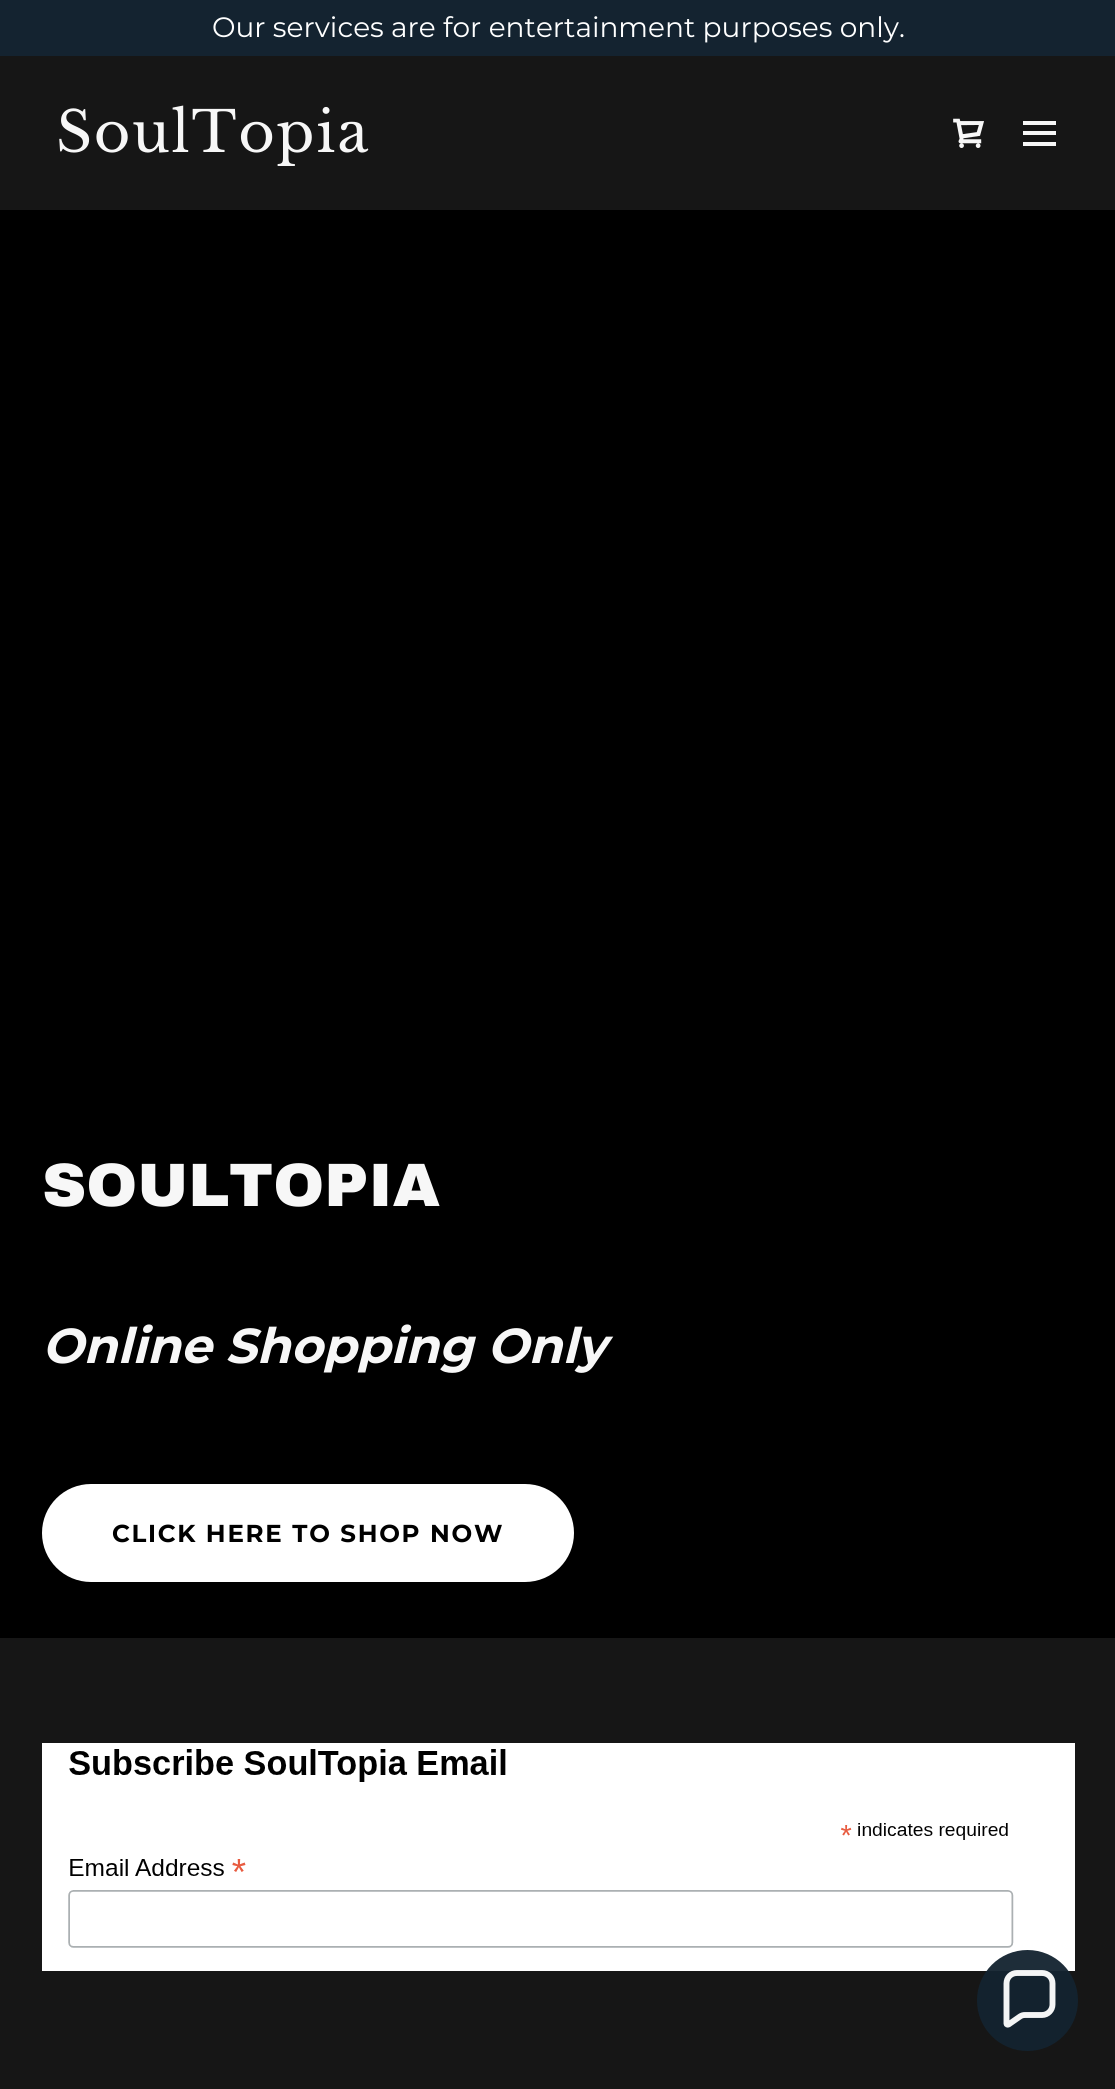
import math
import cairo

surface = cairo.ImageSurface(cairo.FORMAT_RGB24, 1115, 2089)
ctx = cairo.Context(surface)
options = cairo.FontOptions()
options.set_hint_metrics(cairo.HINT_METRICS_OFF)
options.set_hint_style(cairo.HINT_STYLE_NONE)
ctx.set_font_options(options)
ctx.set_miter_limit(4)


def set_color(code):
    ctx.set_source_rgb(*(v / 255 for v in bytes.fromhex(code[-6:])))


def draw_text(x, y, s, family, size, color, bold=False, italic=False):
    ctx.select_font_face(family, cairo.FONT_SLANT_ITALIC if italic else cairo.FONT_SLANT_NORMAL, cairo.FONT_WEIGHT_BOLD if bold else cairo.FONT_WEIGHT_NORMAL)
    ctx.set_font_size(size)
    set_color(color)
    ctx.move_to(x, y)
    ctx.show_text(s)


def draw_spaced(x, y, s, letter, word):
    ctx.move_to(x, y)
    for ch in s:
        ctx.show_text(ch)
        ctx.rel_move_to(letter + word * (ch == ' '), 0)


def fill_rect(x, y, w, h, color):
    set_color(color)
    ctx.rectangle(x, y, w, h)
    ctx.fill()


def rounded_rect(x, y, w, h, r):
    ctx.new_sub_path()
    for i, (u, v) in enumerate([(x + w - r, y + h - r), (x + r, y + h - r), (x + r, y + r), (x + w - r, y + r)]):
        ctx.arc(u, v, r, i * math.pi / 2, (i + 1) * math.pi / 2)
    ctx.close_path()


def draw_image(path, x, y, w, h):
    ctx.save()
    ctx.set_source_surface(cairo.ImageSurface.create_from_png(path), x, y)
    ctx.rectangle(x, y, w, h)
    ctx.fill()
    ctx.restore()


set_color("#161616")
ctx.paint()
fill_rect(0, 0, 1115, 56, "#142330")
draw_text(212, 37, "Our services are for entertainment purposes only.", "Montserrat", 28, "#ffffff")
ctx.select_font_face("Libre Baskerville")
ctx.set_font_size(56)
set_color("#f7f7f7")
draw_spaced(56, 152, "SoulTopia", 1.75, 0)
draw_image("assets/img1.png", 953, 118, 31, 30)
fill_rect(1023, 121, 33, 4, "#f7f7f7")
fill_rect(1023, 131, 33, 4, "#f7f7f7")
fill_rect(1023, 142, 33, 4, "#f7f7f7")
fill_rect(0, 210, 1115, 1428, "#000000")
draw_text(42, 1206, "SOULTOPIA", "Archivo Black Black", 61.25, "#f7f7f7")
draw_text(42, 1363, "Online Shopping Only", "Montserrat", 49, "#f7f7f7", bold=True, italic=True)
set_color("#ffffff")
rounded_rect(42, 1484, 532, 98, 49)
ctx.fill()
ctx.select_font_face("Montserrat", cairo.FONT_SLANT_NORMAL, cairo.FONT_WEIGHT_BOLD)
ctx.set_font_size(24.5)
set_color("#000000")
draw_spaced(112, 1542, "CLICK HERE TO SHOP NOW", 1.75, 0)
draw_image("assets/img2.png", 42, 1743, 1033, 228)
ctx.set_source_rgba(0.078, 0.137, 0.188, 0.95)
ctx.arc(1027.5, 2000.5, 50.5, 0, 2 * math.pi)
ctx.fill()
ctx.new_path()
ctx.move_to(1042, 1973)
ctx.line_to(1017, 1973)
ctx.curve_to(1011, 1973, 1006.5, 1977.5, 1006.5, 1983.5)
ctx.line_to(1006.5, 2023.5)
ctx.curve_to(1006.5, 2024.5, 1007.5, 2025, 1008.5, 2024.5)
ctx.line_to(1020, 2016.5)
ctx.curve_to(1021.5, 2015.5, 1023, 2015, 1025, 2015)
ctx.line_to(1042, 2015)
ctx.curve_to(1048, 2015, 1052.5, 2010, 1052.5, 2004.5)
ctx.line_to(1052.5, 1983.5)
ctx.curve_to(1052.5, 1977.5, 1048, 1973, 1042, 1973)
ctx.close_path()
ctx.set_source_rgba(1, 1, 1, 0.95)
ctx.set_line_width(5.9)
ctx.stroke()
surface.write_to_png("output.png")
